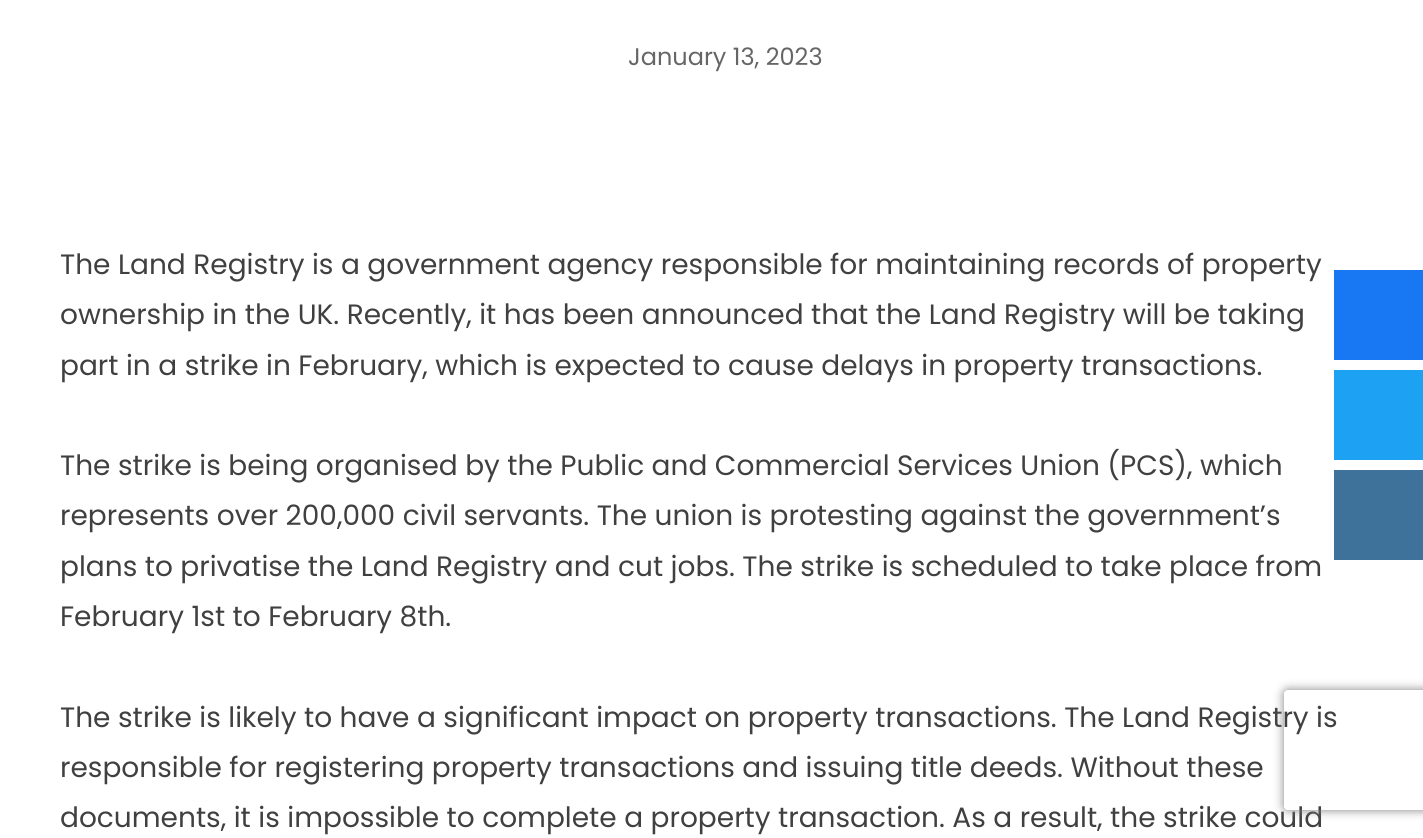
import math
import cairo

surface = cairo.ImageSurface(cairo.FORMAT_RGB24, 1423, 838)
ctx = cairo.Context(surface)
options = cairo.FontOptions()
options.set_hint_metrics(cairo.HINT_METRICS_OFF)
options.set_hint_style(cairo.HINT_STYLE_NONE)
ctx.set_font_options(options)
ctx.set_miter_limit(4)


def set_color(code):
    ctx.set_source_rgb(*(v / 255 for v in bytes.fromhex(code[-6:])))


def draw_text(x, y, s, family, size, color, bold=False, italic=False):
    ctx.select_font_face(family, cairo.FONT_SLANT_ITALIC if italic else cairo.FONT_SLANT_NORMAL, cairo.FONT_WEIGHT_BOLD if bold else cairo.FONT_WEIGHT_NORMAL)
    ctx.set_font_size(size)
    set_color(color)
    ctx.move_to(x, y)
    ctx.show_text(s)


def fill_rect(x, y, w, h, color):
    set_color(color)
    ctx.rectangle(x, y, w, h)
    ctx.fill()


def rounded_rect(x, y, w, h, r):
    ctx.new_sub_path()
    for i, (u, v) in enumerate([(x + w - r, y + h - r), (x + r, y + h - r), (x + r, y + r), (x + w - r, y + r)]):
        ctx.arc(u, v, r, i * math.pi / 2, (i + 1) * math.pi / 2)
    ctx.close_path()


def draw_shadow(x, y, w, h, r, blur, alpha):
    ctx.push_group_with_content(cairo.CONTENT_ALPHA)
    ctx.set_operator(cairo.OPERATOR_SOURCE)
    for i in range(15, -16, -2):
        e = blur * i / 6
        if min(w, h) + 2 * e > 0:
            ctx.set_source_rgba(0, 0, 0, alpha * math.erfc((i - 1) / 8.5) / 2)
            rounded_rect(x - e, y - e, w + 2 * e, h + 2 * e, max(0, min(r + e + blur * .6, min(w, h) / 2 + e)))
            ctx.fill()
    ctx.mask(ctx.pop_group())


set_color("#ffffff")
ctx.paint()
draw_text(628, 65, "January 13, 2023", "Poppins", 24, "#666666")
draw_text(60, 274, "The Land Registry is a government agency responsible for maintaining records of property", "Poppins", 28, "#404040")
draw_text(60, 324, "ownership in the UK. Recently, it has been announced that the Land Registry will be taking", "Poppins", 28, "#404040")
draw_text(60, 375, "part in a strike in February, which is expected to cause delays in property transactions.", "Poppins", 28, "#404040")
draw_text(60, 475, "The strike is being organised by the Public and Commercial Services Union (PCS), which", "Poppins", 28, "#404040")
draw_text(60, 525, "represents over 200,000 civil servants. The union is protesting against the government’s", "Poppins", 28, "#404040")
draw_text(60, 576, "plans to privatise the Land Registry and cut jobs. The strike is scheduled to take place from", "Poppins", 28, "#404040")
draw_text(60, 626, "February 1st to February 8th.", "Poppins", 28, "#404040")
draw_text(60, 727, "The strike is likely to have a significant impact on property transactions. The Land Registry is", "Poppins", 28, "#404040")
draw_text(60, 777, "responsible for registering property transactions and issuing title deeds. Without these", "Poppins", 28, "#404040")
draw_text(60, 827, "documents, it is impossible to complete a property transaction. As a result, the strike could", "Poppins", 28, "#404040")
fill_rect(1334, 270, 89, 90, "#1877f2")
fill_rect(1334, 370, 89, 90, "#1da1f2")
fill_rect(1334, 470, 89, 90, "#3f729b")
ctx.save()
ctx.set_fill_rule(cairo.FILL_RULE_EVEN_ODD)
ctx.new_path()
ctx.move_to(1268, 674)
ctx.line_to(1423, 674)
ctx.line_to(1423, 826)
ctx.line_to(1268, 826)
ctx.close_path()
ctx.move_to(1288, 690)
ctx.line_to(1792, 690)
ctx.curve_to(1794, 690, 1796, 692, 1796, 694)
ctx.line_to(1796, 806)
ctx.curve_to(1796, 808, 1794, 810, 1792, 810)
ctx.line_to(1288, 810)
ctx.curve_to(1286, 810, 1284, 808, 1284, 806)
ctx.line_to(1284, 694)
ctx.curve_to(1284, 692, 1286, 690, 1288, 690)
ctx.close_path()
ctx.clip()
set_color("#808080")
draw_shadow(1284, 690, 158, 120, 4, 5, 1)
ctx.restore()
surface.write_to_png("output.png")
